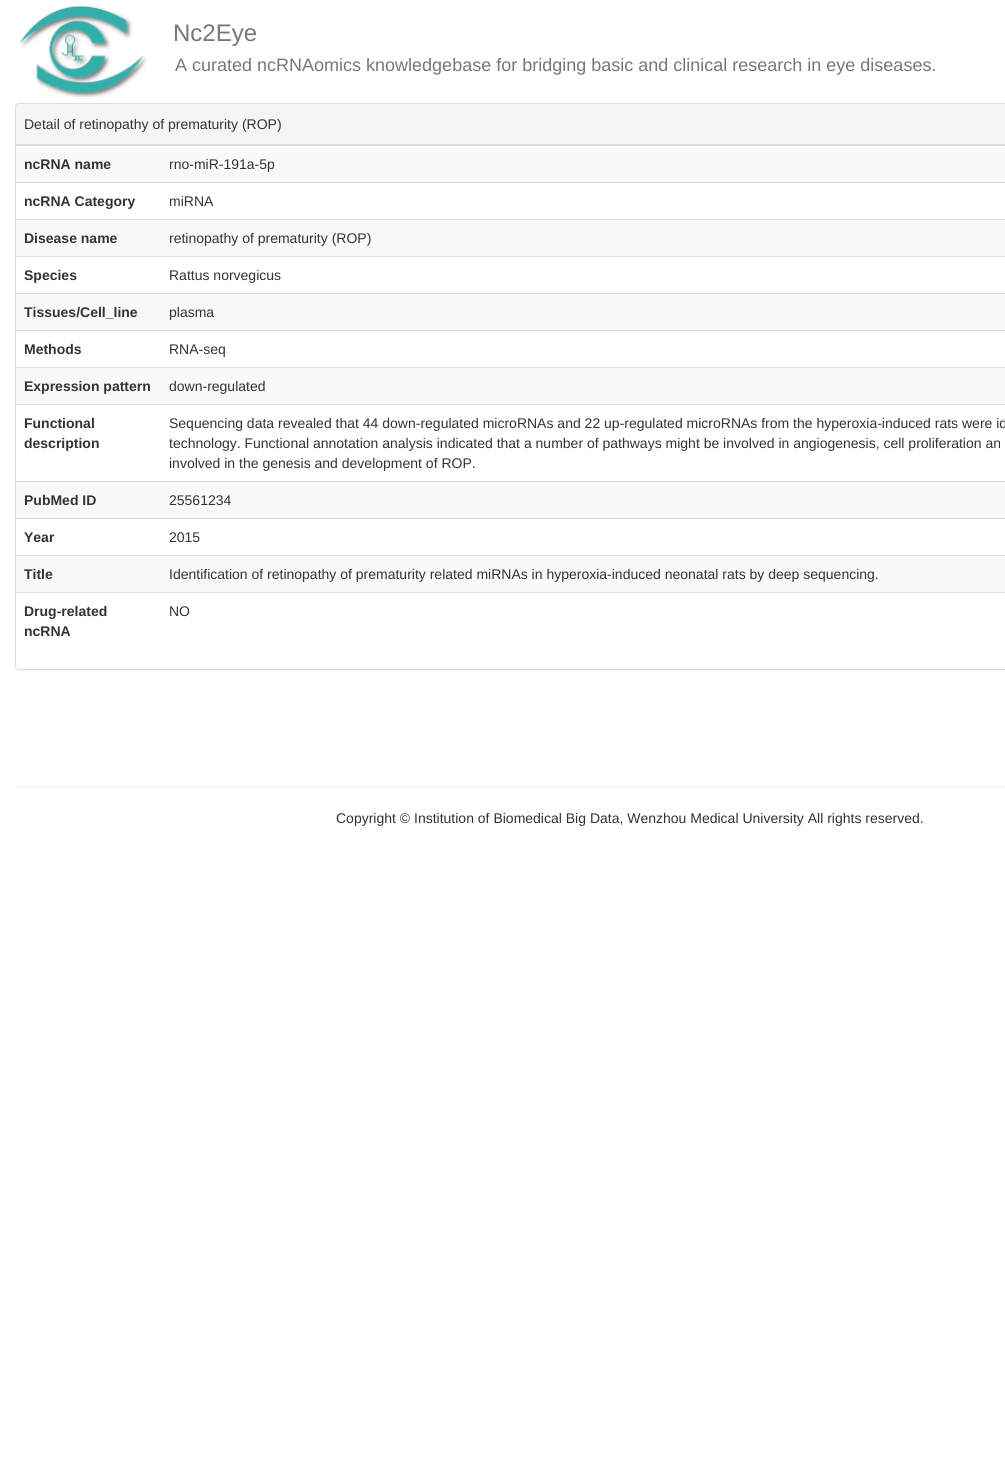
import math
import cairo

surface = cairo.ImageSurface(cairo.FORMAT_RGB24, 1005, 1468)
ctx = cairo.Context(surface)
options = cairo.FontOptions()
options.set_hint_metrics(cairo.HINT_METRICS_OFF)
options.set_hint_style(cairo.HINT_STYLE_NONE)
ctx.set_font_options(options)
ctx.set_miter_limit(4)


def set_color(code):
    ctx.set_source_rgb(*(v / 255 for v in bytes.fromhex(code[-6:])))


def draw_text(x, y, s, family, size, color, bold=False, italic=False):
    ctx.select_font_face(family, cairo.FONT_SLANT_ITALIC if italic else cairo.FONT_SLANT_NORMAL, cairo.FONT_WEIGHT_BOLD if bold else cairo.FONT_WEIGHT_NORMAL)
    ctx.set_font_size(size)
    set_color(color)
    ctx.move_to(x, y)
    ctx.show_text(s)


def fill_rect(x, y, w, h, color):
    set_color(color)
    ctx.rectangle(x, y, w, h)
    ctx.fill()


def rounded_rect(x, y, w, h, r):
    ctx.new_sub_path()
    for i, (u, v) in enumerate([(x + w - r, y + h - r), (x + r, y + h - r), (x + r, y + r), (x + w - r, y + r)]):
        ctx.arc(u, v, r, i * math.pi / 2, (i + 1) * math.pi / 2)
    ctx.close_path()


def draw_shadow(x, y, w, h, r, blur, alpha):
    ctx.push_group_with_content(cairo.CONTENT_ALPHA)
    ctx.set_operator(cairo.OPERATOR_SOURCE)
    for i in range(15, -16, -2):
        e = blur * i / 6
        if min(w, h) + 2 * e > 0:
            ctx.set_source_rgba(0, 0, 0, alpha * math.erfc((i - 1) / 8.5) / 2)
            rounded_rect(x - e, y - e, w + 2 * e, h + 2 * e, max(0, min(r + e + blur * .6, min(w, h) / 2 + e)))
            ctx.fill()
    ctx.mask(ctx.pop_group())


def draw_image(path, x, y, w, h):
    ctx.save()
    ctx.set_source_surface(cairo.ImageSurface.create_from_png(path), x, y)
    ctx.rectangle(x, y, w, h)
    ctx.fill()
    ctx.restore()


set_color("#ffffff")
ctx.paint()
draw_image("assets/img1.png", 19, 6, 128, 92)
draw_text(173, 41, "Nc2Eye", "Liberation Sans", 24, "#777777")
draw_text(175, 71, "A curated ncRNAomics knowledgebase for bridging basic and clinical research in eye diseases.", "Liberation Sans", 18, "#777777")
set_color("#000000")
draw_shadow(15, 104, 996, 567, 4, 0.5, 0.05)
set_color("#ffffff")
rounded_rect(15.5, 103.5, 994, 566, 3.5)
ctx.fill_preserve()
set_color("#dddddd")
ctx.set_line_width(1)
ctx.stroke()
set_color("#f5f5f5")
ctx.new_path()
ctx.move_to(19, 104)
ctx.line_to(1005, 104)
ctx.curve_to(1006.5, 104, 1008, 105.5, 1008, 107)
ctx.line_to(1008, 145)
ctx.line_to(16, 145)
ctx.line_to(16, 107)
ctx.curve_to(16, 105.5, 17.5, 104, 19, 104)
ctx.close_path()
ctx.fill()
fill_rect(16, 144, 989, 1, "#dddddd")
draw_text(24, 129, "Detail of retinopathy of prematurity (ROP)", "Liberation Sans", 14, "#333333")
fill_rect(16, 146, 989, 36, "#f9f9f9")
draw_text(24, 169, "ncRNA name", "Liberation Sans", 14, "#333333", bold=True)
fill_rect(16, 145, 989, 1, "#dddddd")
draw_text(169, 169, "rno-miR-191a-5p", "Liberation Sans", 14, "#333333")
draw_text(24, 206, "ncRNA Category", "Liberation Sans", 14, "#333333", bold=True)
fill_rect(16, 182, 989, 1, "#dddddd")
draw_text(169, 206, "miRNA", "Liberation Sans", 14, "#333333")
fill_rect(16, 220, 989, 36, "#f9f9f9")
draw_text(24, 243, "Disease name", "Liberation Sans", 14, "#333333", bold=True)
fill_rect(16, 219, 989, 1, "#dddddd")
draw_text(169, 243, "retinopathy of prematurity (ROP)", "Liberation Sans", 14, "#333333")
draw_text(24, 280, "Species", "Liberation Sans", 14, "#333333", bold=True)
fill_rect(16, 256, 989, 1, "#dddddd")
draw_text(169, 280, "Rattus norvegicus", "Liberation Sans", 14, "#333333")
fill_rect(16, 294, 989, 36, "#f9f9f9")
draw_text(24, 317, "Tissues/Cell_line", "Liberation Sans", 14, "#333333", bold=True)
fill_rect(16, 293, 989, 1, "#dddddd")
draw_text(169, 317, "plasma", "Liberation Sans", 14, "#333333")
draw_text(24, 354, "Methods", "Liberation Sans", 14, "#333333", bold=True)
fill_rect(16, 330, 989, 1, "#dddddd")
draw_text(169, 354, "RNA-seq", "Liberation Sans", 14, "#333333")
fill_rect(16, 368, 989, 36, "#f9f9f9")
draw_text(24, 391, "Expression pattern", "Liberation Sans", 14, "#333333", bold=True)
fill_rect(16, 367, 989, 1, "#dddddd")
draw_text(169, 391, "down-regulated", "Liberation Sans", 14, "#333333")
draw_text(24, 428, "Functional", "Liberation Sans", 14, "#333333", bold=True)
draw_text(24, 448, "description", "Liberation Sans", 14, "#333333", bold=True)
fill_rect(16, 404, 989, 1, "#dddddd")
draw_text(169, 428, "Sequencing data revealed that 44 down-regulated microRNAs and 22 up-regulated microRNAs from the hyperoxia-induced rats were id", "Liberation Sans", 14, "#333333")
draw_text(169, 448, "technology. Functional annotation analysis indicated that a number of pathways might be involved in angiogenesis, cell proliferation an", "Liberation Sans", 14, "#333333")
draw_text(169, 468, "involved in the genesis and development of ROP.", "Liberation Sans", 14, "#333333")
fill_rect(16, 482, 989, 36, "#f9f9f9")
draw_text(24, 505, "PubMed ID", "Liberation Sans", 14, "#333333", bold=True)
fill_rect(16, 481, 989, 1, "#dddddd")
draw_text(169, 505, "25561234", "Liberation Sans", 14, "#333333")
draw_text(24, 542, "Year", "Liberation Sans", 14, "#333333", bold=True)
fill_rect(16, 518, 989, 1, "#dddddd")
draw_text(169, 542, "2015", "Liberation Sans", 14, "#333333")
fill_rect(16, 556, 989, 36, "#f9f9f9")
draw_text(24, 579, "Title", "Liberation Sans", 14, "#333333", bold=True)
fill_rect(16, 555, 989, 1, "#dddddd")
draw_text(169, 579, "Identification of retinopathy of prematurity related miRNAs in hyperoxia-induced neonatal rats by deep sequencing.", "Liberation Sans", 14, "#333333")
draw_text(24, 616, "Drug-related", "Liberation Sans", 14, "#333333", bold=True)
draw_text(24, 636, "ncRNA", "Liberation Sans", 14, "#333333", bold=True)
fill_rect(16, 592, 989, 1, "#dddddd")
draw_text(169, 616, "NO", "Liberation Sans", 14, "#333333")
fill_rect(15, 787, 990, 1, "#eeeeee")
draw_text(336, 823, "Copyright © Institution of Biomedical Big Data, Wenzhou Medical University All rights reserved.", "Liberation Sans", 14, "#333333")
surface.write_to_png("output.png")
